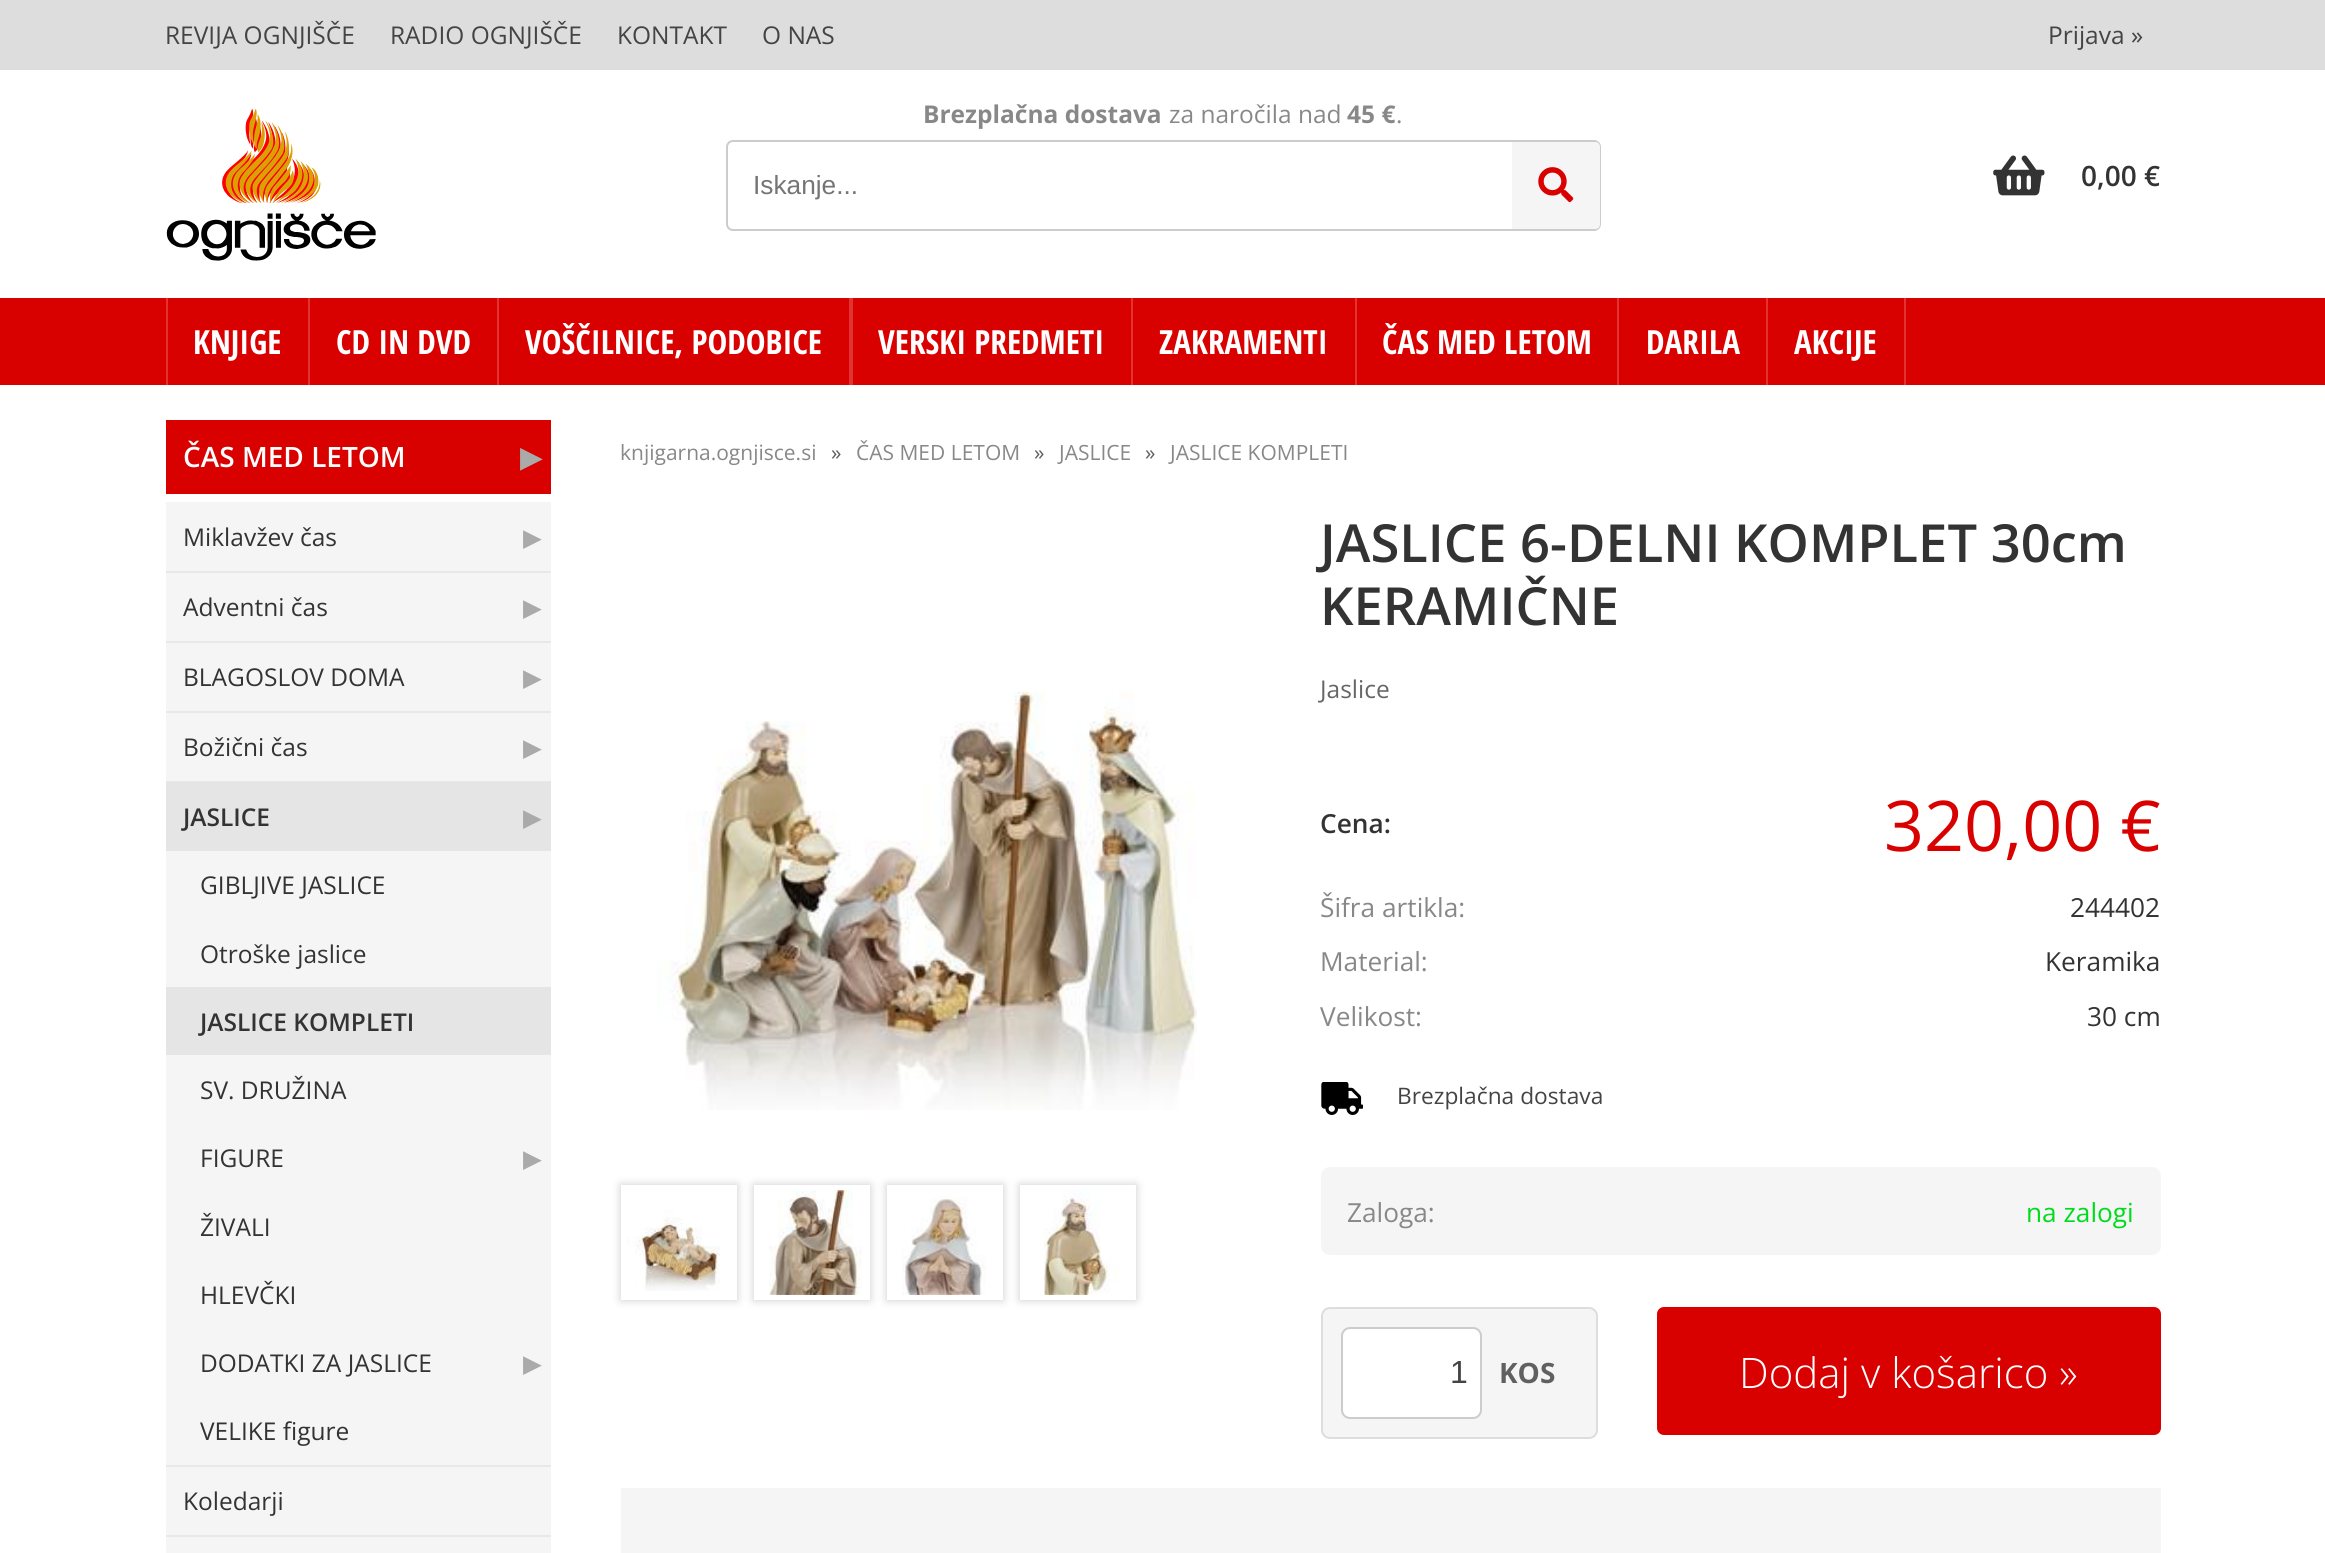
import math
import cairo

surface = cairo.ImageSurface(cairo.FORMAT_RGB24, 2325, 1553)
ctx = cairo.Context(surface)
options = cairo.FontOptions()
options.set_hint_metrics(cairo.HINT_METRICS_OFF)
options.set_hint_style(cairo.HINT_STYLE_NONE)
ctx.set_font_options(options)
ctx.set_miter_limit(4)


def set_color(code):
    ctx.set_source_rgb(*(v / 255 for v in bytes.fromhex(code[-6:])))


def draw_text(x, y, s, family, size, color, bold=False, italic=False):
    ctx.select_font_face(family, cairo.FONT_SLANT_ITALIC if italic else cairo.FONT_SLANT_NORMAL, cairo.FONT_WEIGHT_BOLD if bold else cairo.FONT_WEIGHT_NORMAL)
    ctx.set_font_size(size)
    set_color(color)
    ctx.move_to(x, y)
    ctx.show_text(s)


def fill_rect(x, y, w, h, color):
    set_color(color)
    ctx.rectangle(x, y, w, h)
    ctx.fill()


def rounded_rect(x, y, w, h, r):
    ctx.new_sub_path()
    for i, (u, v) in enumerate([(x + w - r, y + h - r), (x + r, y + h - r), (x + r, y + r), (x + w - r, y + r)]):
        ctx.arc(u, v, r, i * math.pi / 2, (i + 1) * math.pi / 2)
    ctx.close_path()


def draw_shadow(x, y, w, h, r, blur, alpha):
    ctx.push_group_with_content(cairo.CONTENT_ALPHA)
    ctx.set_operator(cairo.OPERATOR_SOURCE)
    for i in range(15, -16, -2):
        e = blur * i / 6
        if min(w, h) + 2 * e > 0:
            ctx.set_source_rgba(0, 0, 0, alpha * math.erfc((i - 1) / 8.5) / 2)
            rounded_rect(x - e, y - e, w + 2 * e, h + 2 * e, max(0, min(r + e + blur * .6, min(w, h) / 2 + e)))
            ctx.fill()
    ctx.mask(ctx.pop_group())


def draw_image(path, x, y, w, h):
    ctx.save()
    ctx.set_source_surface(cairo.ImageSurface.create_from_png(path), x, y)
    ctx.rectangle(x, y, w, h)
    ctx.fill()
    ctx.restore()


set_color("#ffffff")
ctx.paint()
fill_rect(0, 0, 2325, 70, "#dddddd")
draw_text(165, 44, "REVIJA OGNJIŠČE", "Open Sans", 24.5, "#444444")
draw_text(390, 44, "RADIO OGNJIŠČE", "Open Sans", 24.5, "#444444")
draw_text(617, 44, "KONTAKT", "Open Sans", 24.5, "#444444")
draw_text(762, 44, "O NAS", "Open Sans", 24.5, "#444444")
draw_text(2048, 44, "Prijava »", "Open Sans", 24.5, "#444444")
draw_image("assets/img1.png", 166, 109, 210, 152)
rounded_rect(727, 141, 873, 89, 6)
set_color("#cccccc")
ctx.stroke()
draw_text(753, 194, "Iskanje...", "Liberation Sans", 26.25, "#757575")
set_color("#f5f5f5")
ctx.new_path()
ctx.move_to(1512, 142)
ctx.line_to(1595, 142)
ctx.curve_to(1598, 142, 1600, 144, 1600, 147)
ctx.line_to(1600, 224)
ctx.curve_to(1600, 227, 1598, 229, 1595, 229)
ctx.line_to(1512, 229)
ctx.close_path()
ctx.fill()
draw_image("assets/img2.png", 1538, 167, 36, 36)
draw_text(923, 123, "Brezplačna dostava", "Open Sans", 24.5, "#888888", bold=True)
draw_text(1169, 123, "za naročila nad", "Open Sans", 24.5, "#888888")
draw_text(1347, 123, "45 €", "Open Sans", 24.5, "#888888", bold=True)
draw_text(1396, 123, ".", "Open Sans", 24.5, "#888888")
draw_image("assets/img3.png", 1993, 155, 52, 41)
draw_text(2081, 186, "0,00 €", "Open Sans SemiBold", 28, "#333333")
fill_rect(0, 298, 2325, 87, "#d90000")
fill_rect(166, 298, 2, 87, "#e13333")
draw_text(193, 354, "KNJIGE", "Open Sans Condensed", 33.25, "#ffffff", bold=True)
fill_rect(308, 298, 2, 87, "#e13333")
draw_text(336, 354, "CD IN DVD", "Open Sans Condensed", 33.25, "#ffffff", bold=True)
fill_rect(497, 298, 2, 87, "#e13333")
draw_text(525, 354, "VOŠČILNICE, PODOBICE", "Open Sans Condensed", 33.25, "#ffffff", bold=True)
fill_rect(849, 298, 4, 87, "#e13333")
draw_text(878, 354, "VERSKI PREDMETI", "Open Sans Condensed", 33.25, "#ffffff", bold=True)
fill_rect(1131, 298, 2, 87, "#e13333")
draw_text(1159, 354, "ZAKRAMENTI", "Open Sans Condensed", 33.25, "#ffffff", bold=True)
fill_rect(1355, 298, 2, 87, "#e13333")
draw_text(1382, 354, "ČAS MED LETOM", "Open Sans Condensed", 33.25, "#ffffff", bold=True)
fill_rect(1617, 298, 2, 87, "#e13333")
draw_text(1646, 354, "DARILA", "Open Sans Condensed", 33.25, "#ffffff", bold=True)
fill_rect(1904, 298, 2, 87, "#e13333")
fill_rect(1766, 298, 2, 87, "#e13333")
draw_text(1794, 354, "AKCIJE", "Open Sans Condensed", 33.25, "#ffffff", bold=True)
fill_rect(166, 420, 385, 74, "#d90000")
draw_text(183, 467, "ČAS MED LETOM", "Open Sans SemiBold", 28, "#ffffff")
draw_text(520, 467, "▶", "DejaVu Sans", 28, "#aaaaaa", bold=True)
fill_rect(166, 502, 385, 1051, "#f5f5f5")
draw_text(183, 546, "Miklavžev čas", "Open Sans", 24.5, "#333333")
draw_text(523, 546, "▶", "DejaVu Sans", 24.5, "#aaaaaa")
fill_rect(166, 571, 385, 2, "#e8e8e8")
draw_text(183, 616, "Adventni čas", "Open Sans", 24.5, "#333333")
draw_text(523, 616, "▶", "DejaVu Sans", 24.5, "#aaaaaa")
fill_rect(166, 641, 385, 2, "#e8e8e8")
draw_text(183, 686, "BLAGOSLOV DOMA", "Open Sans", 24.5, "#333333")
draw_text(523, 686, "▶", "DejaVu Sans", 24.5, "#aaaaaa")
fill_rect(166, 711, 385, 2, "#e8e8e8")
draw_text(183, 756, "Božični čas", "Open Sans", 24.5, "#333333")
draw_text(523, 756, "▶", "DejaVu Sans", 24.5, "#aaaaaa")
fill_rect(166, 781, 385, 1, "#e8e8e8")
fill_rect(166, 782, 385, 69, "#e5e5e5")
draw_text(183, 826, "JASLICE", "Open Sans SemiBold", 24.5, "#333333")
draw_text(523, 826, "▶", "DejaVu Sans", 24.5, "#aaaaaa")
draw_text(200, 894, "GIBLJIVE JASLICE", "Open Sans", 24.5, "#333333")
draw_text(200, 963, "Otroške jaslice", "Open Sans", 24.5, "#333333")
fill_rect(166, 987, 385, 68, "#e5e5e5")
draw_text(200, 1031, "JASLICE KOMPLETI", "Open Sans SemiBold", 24.5, "#333333")
draw_text(200, 1099, "SV. DRUŽINA", "Open Sans", 24.5, "#333333")
draw_text(200, 1167, "FIGURE", "Open Sans", 24.5, "#333333")
draw_text(523, 1167, "▶", "DejaVu Sans", 24.5, "#aaaaaa")
draw_text(200, 1236, "ŽIVALI", "Open Sans", 24.5, "#333333")
draw_text(200, 1304, "HLEVČKI", "Open Sans", 24.5, "#333333")
draw_text(200, 1372, "DODATKI ZA JASLICE", "Open Sans", 24.5, "#333333")
draw_text(523, 1372, "▶", "DejaVu Sans", 24.5, "#aaaaaa")
draw_text(200, 1440, "VELIKE figure", "Open Sans", 24.5, "#333333")
fill_rect(166, 1465, 385, 2, "#e8e8e8")
draw_text(183, 1510, "Koledarji", "Open Sans", 24.5, "#333333")
fill_rect(166, 1535, 385, 2, "#e8e8e8")
draw_text(620, 460, "knjigarna.ognjisce.si", "Open Sans", 21, "#888888")
draw_text(831, 460, "»", "Open Sans", 21, "#606060")
draw_text(856, 460, "ČAS MED LETOM", "Open Sans", 21, "#888888")
draw_text(1034, 460, "»", "Open Sans", 21, "#606060")
draw_text(1059, 460, "JASLICE", "Open Sans", 21, "#888888")
draw_text(1145, 460, "»", "Open Sans", 21, "#606060")
draw_text(1170, 460, "JASLICE KOMPLETI", "Open Sans", 21, "#888888")
draw_text(1320, 562, "JASLICE 6-DELNI KOMPLET 30cm", "Open Sans SemiBold", 52.5, "#333333")
draw_text(1320, 625, "KERAMIČNE", "Open Sans SemiBold", 52.5, "#333333")
draw_text(1320, 698, "Jaslice", "Open Sans", 24.5, "#666666")
draw_image("assets/img4.png", 657, 690, 540, 420)
ctx.save()
ctx.set_fill_rule(cairo.FILL_RULE_EVEN_ODD)
ctx.new_path()
ctx.move_to(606, 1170)
ctx.line_to(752, 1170)
ctx.line_to(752, 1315)
ctx.line_to(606, 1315)
ctx.close_path()
ctx.move_to(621, 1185)
ctx.line_to(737, 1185)
ctx.line_to(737, 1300)
ctx.line_to(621, 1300)
ctx.close_path()
ctx.clip()
set_color("#cccccc")
draw_shadow(621, 1185, 116, 115, 0, 4.5, 1)
ctx.restore()
draw_image("assets/img5.png", 627, 1209, 93, 82)
ctx.save()
ctx.set_fill_rule(cairo.FILL_RULE_EVEN_ODD)
ctx.new_path()
ctx.move_to(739, 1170)
ctx.line_to(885, 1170)
ctx.line_to(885, 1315)
ctx.line_to(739, 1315)
ctx.close_path()
ctx.move_to(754, 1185)
ctx.line_to(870, 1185)
ctx.line_to(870, 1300)
ctx.line_to(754, 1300)
ctx.close_path()
ctx.clip()
set_color("#cccccc")
draw_shadow(754, 1185, 116, 115, 0, 4.5, 1)
ctx.restore()
draw_image("assets/img6.png", 769, 1190, 93, 105)
ctx.save()
ctx.set_fill_rule(cairo.FILL_RULE_EVEN_ODD)
ctx.new_path()
ctx.move_to(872, 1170)
ctx.line_to(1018, 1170)
ctx.line_to(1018, 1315)
ctx.line_to(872, 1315)
ctx.close_path()
ctx.move_to(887, 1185)
ctx.line_to(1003, 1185)
ctx.line_to(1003, 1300)
ctx.line_to(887, 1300)
ctx.close_path()
ctx.clip()
set_color("#cccccc")
draw_shadow(887, 1185, 116, 115, 0, 4.5, 1)
ctx.restore()
draw_image("assets/img7.png", 902, 1196, 84, 99)
ctx.save()
ctx.set_fill_rule(cairo.FILL_RULE_EVEN_ODD)
ctx.new_path()
ctx.move_to(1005, 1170)
ctx.line_to(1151, 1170)
ctx.line_to(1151, 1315)
ctx.line_to(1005, 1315)
ctx.close_path()
ctx.move_to(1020, 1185)
ctx.line_to(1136, 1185)
ctx.line_to(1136, 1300)
ctx.line_to(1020, 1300)
ctx.close_path()
ctx.clip()
set_color("#cccccc")
draw_shadow(1020, 1185, 116, 115, 0, 4.5, 1)
ctx.restore()
draw_image("assets/img8.png", 1043, 1190, 76, 105)
draw_text(1320, 833, "Cena:", "Open Sans SemiBold", 26.25, "#333333")
draw_text(1884, 851, "320,00 €", "Open Sans", 70, "#d90000")
draw_text(1320, 917, "Šifra artikla:", "Open Sans", 26.25, "#888888")
draw_text(2070, 917, "244402", "Open Sans", 26.25, "#333333")
draw_text(1320, 971, "Material:", "Open Sans", 26.25, "#888888")
draw_text(2045, 971, "Keramika", "Open Sans", 26.25, "#333333")
draw_text(1320, 1026, "Velikost:", "Open Sans", 26.25, "#888888")
draw_text(2087, 1026, "30 cm", "Open Sans", 26.25, "#333333")
draw_image("assets/img9.png", 1321, 1082, 42, 33)
draw_text(1397, 1104, "Brezplačna dostava", "Open Sans", 22.75, "#444444")
set_color("#f5f5f5")
rounded_rect(1321, 1167, 840, 88, 9)
ctx.fill()
draw_text(1347, 1222, "Zaloga:", "Open Sans", 26.25, "#888888")
draw_text(2026, 1222, "na zalogi", "Open Sans", 26.25, "#00db1d")
set_color("#f5f5f5")
rounded_rect(1322, 1308, 275, 130, 8)
ctx.fill_preserve()
set_color("#dddddd")
ctx.stroke()
set_color("#ffffff")
rounded_rect(1342, 1328, 139, 90, 8)
ctx.fill_preserve()
set_color("#cccccc")
ctx.stroke()
draw_text(1450, 1383, "1", "Liberation Sans", 32, "#444444")
draw_text(1499, 1383, "KOS", "Open Sans", 28, "#606060", bold=True)
set_color("#d90000")
rounded_rect(1657, 1307, 504, 128, 7)
ctx.fill()
draw_text(1739, 1388, "Dodaj v košarico »", "Open Sans Light", 42, "#ffffff")
fill_rect(621, 1488, 1540, 65, "#f5f5f5")
surface.write_to_png("output.png")
